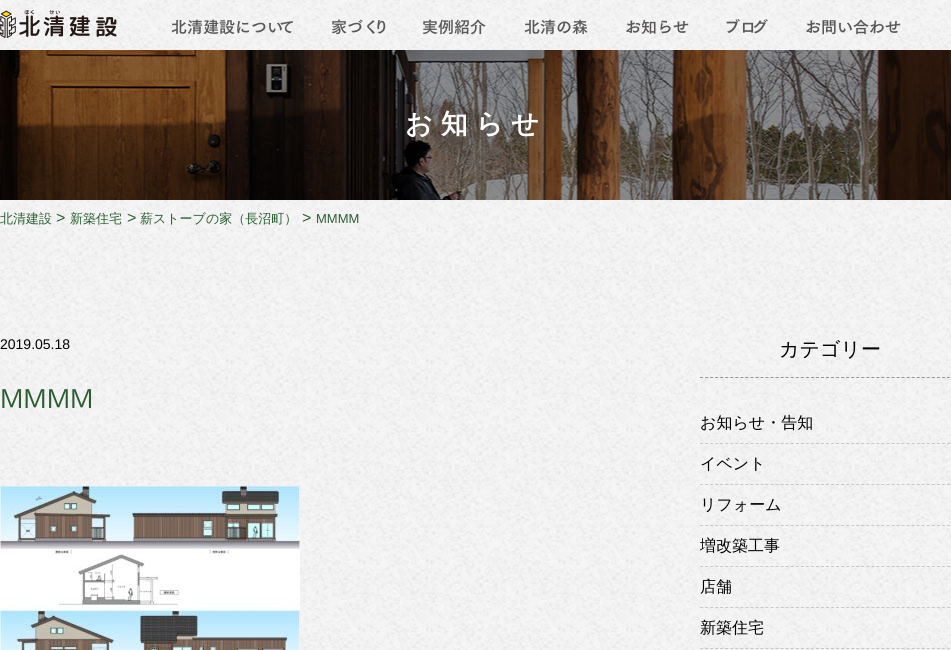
import math
import cairo

surface = cairo.ImageSurface(cairo.FORMAT_RGB24, 951, 650)
ctx = cairo.Context(surface)
options = cairo.FontOptions()
options.set_hint_metrics(cairo.HINT_METRICS_OFF)
options.set_hint_style(cairo.HINT_STYLE_NONE)
ctx.set_font_options(options)
ctx.set_miter_limit(4)


def set_color(code):
    ctx.set_source_rgb(*(v / 255 for v in bytes.fromhex(code[-6:])))


def draw_text(x, y, s, family, size, color, bold=False, italic=False):
    ctx.select_font_face(family, cairo.FONT_SLANT_ITALIC if italic else cairo.FONT_SLANT_NORMAL, cairo.FONT_WEIGHT_BOLD if bold else cairo.FONT_WEIGHT_NORMAL)
    ctx.set_font_size(size)
    set_color(color)
    ctx.move_to(x, y)
    ctx.show_text(s)


def draw_spaced(x, y, s, letter, word):
    ctx.move_to(x, y)
    for ch in s:
        ctx.show_text(ch)
        ctx.rel_move_to(letter + word * (ch == ' '), 0)


def draw_image(path, x, y, w, h):
    ctx.save()
    ctx.set_source_surface(cairo.ImageSurface.create_from_png(path), x, y)
    ctx.rectangle(x, y, w, h)
    ctx.fill()
    ctx.restore()


set_color("#ffffff")
ctx.paint()
draw_image("assets/img1.png", 0, 0, 951, 650)
draw_image("assets/img2.png", 0, 10, 117, 28)
draw_text(171, 33, "北清建設につい", "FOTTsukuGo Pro", 16, "#595757", bold=True)
draw_text(279, 33, "て", "FOTTsukuGo Pro", 16, "#595757", bold=True)
draw_text(331, 33, "家づく", "FOTTsukuGo Pro", 16, "#595757", bold=True)
draw_text(373, 33, "り", "FOTTsukuGo Pro", 16, "#595757", bold=True)
draw_text(422, 33, "実例紹介", "FOTTsukuGo Pro", 16, "#595757", bold=True)
draw_text(524, 33, "北清の森", "FOTTsukuGo Pro", 16, "#595757", bold=True)
draw_text(625, 33, "お知らせ", "FOTTsukuGo Pro", 16, "#595757", bold=True)
draw_text(724, 33, "ブロ", "FOTTsukuGo Pro", 16, "#595757", bold=True)
draw_text(752, 33, "グ", "FOTTsukuGo Pro", 16, "#595757", bold=True)
draw_text(805, 33, "お問い合わせ", "FOTTsukuGo Pro", 16, "#595757", bold=True)
draw_image("assets/img3.png", 0, 50, 951, 150)
ctx.select_font_face("WenQuanYi Zen Hei", cairo.FONT_SLANT_NORMAL, cairo.FONT_WEIGHT_BOLD)
ctx.set_font_size(27)
set_color("#ffffff")
draw_spaced(405, 133, "お知らせ", 8, 0)
draw_text(0, 223, "北清建設", "WenQuanYi Zen Hei Medium", 13, "#2a5d32")
draw_text(56, 223, ">", "Liberation Sans", 16, "#2a5d32")
draw_text(70, 223, "新築住宅", "WenQuanYi Zen Hei Medium", 13, "#2a5d32")
draw_text(127, 223, ">", "Liberation Sans", 16, "#2a5d32")
draw_text(140, 223, "薪ストーブの家（長沼町）", "WenQuanYi Zen Hei Medium", 13, "#2a5d32")
draw_text(302, 223, ">", "Liberation Sans", 16, "#2a5d32")
draw_text(316, 223, "MMMM", "Liberation Sans", 13, "#2a5d32")
draw_text(0, 349, "2019.05.18", "Liberation Sans", 14, "#000000")
draw_text(0, 408, "MMMM", "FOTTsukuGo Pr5 Medium", 26, "#2a5d32")
draw_image("assets/img4.png", 0, 486, 300, 164)
ctx.new_path()
ctx.move_to(700, 377.5)
ctx.line_to(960, 377.5)
set_color("#959595")
ctx.set_line_width(1)
ctx.set_dash([3, 2.04])
ctx.stroke()
draw_text(779, 356, "カテゴリー", "WenQuanYi Zen Hei Medium", 20, "#000000")
ctx.new_path()
ctx.move_to(700, 443.5)
ctx.line_to(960, 443.5)
set_color("#c8c8c8")
ctx.stroke()
draw_text(700, 428, "お知らせ・告知", "WenQuanYi Zen Hei Medium", 16, "#000000")
ctx.new_path()
ctx.move_to(700, 484.5)
ctx.line_to(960, 484.5)
set_color("#c8c8c8")
ctx.stroke()
draw_text(700, 469, "イベント", "WenQuanYi Zen Hei Medium", 16, "#000000")
ctx.new_path()
ctx.move_to(700, 525.5)
ctx.line_to(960, 525.5)
set_color("#c8c8c8")
ctx.stroke()
draw_text(700, 510, "リフォーム", "WenQuanYi Zen Hei Medium", 16, "#000000")
ctx.new_path()
ctx.move_to(700, 566.5)
ctx.line_to(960, 566.5)
set_color("#c8c8c8")
ctx.stroke()
draw_text(700, 551, "増改築工事", "WenQuanYi Zen Hei Medium", 16, "#000000")
ctx.new_path()
ctx.move_to(700, 607.5)
ctx.line_to(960, 607.5)
set_color("#c8c8c8")
ctx.stroke()
draw_text(700, 592, "店舗", "WenQuanYi Zen Hei Medium", 16, "#000000")
ctx.new_path()
ctx.move_to(700, 648.5)
ctx.line_to(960, 648.5)
set_color("#c8c8c8")
ctx.stroke()
draw_text(700, 633, "新築住宅", "WenQuanYi Zen Hei Medium", 16, "#000000")
surface.write_to_png("output.png")
